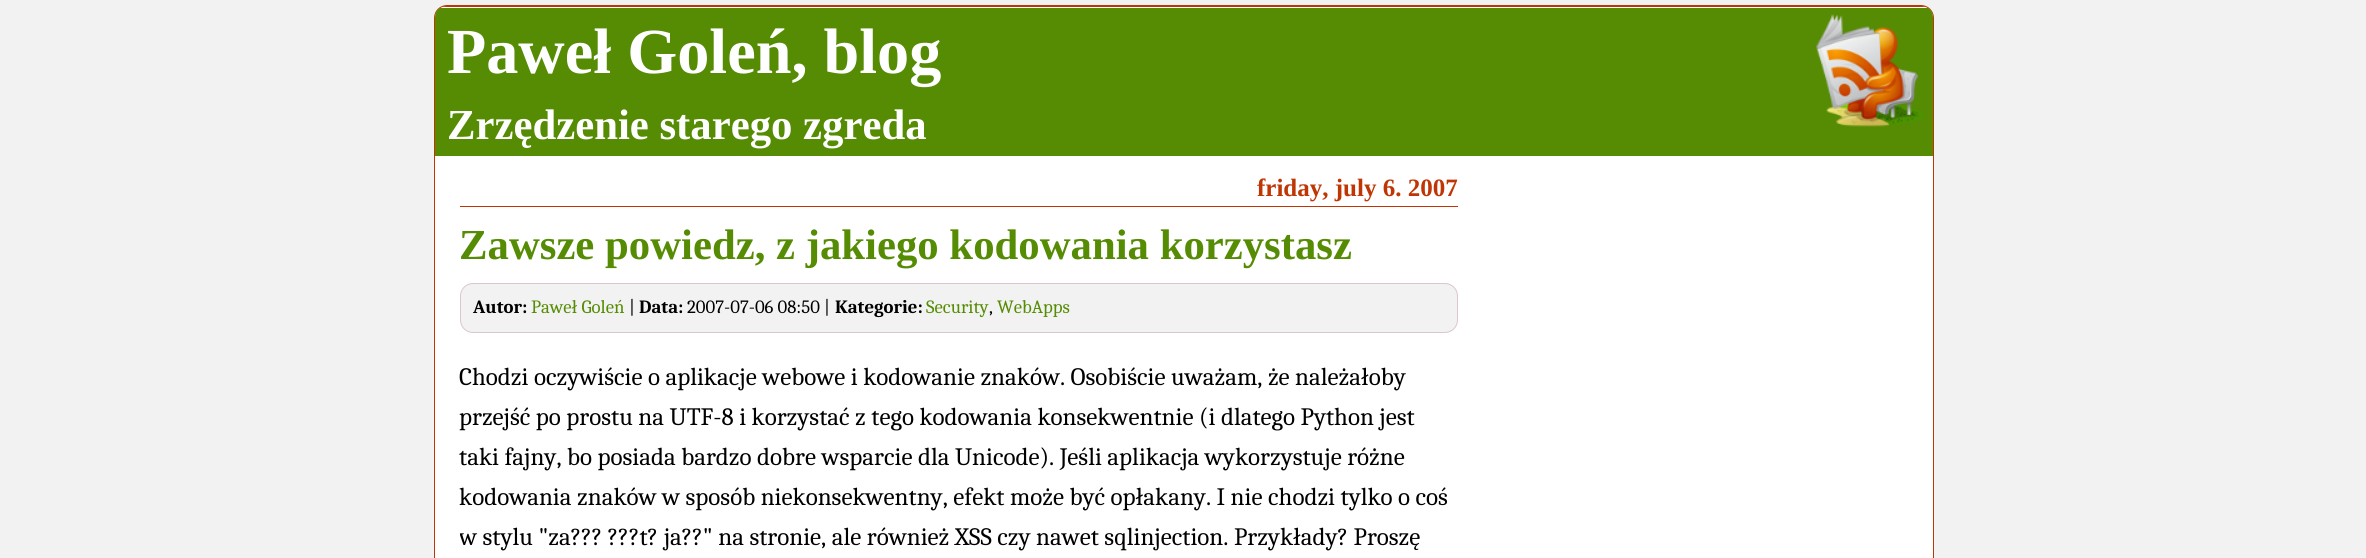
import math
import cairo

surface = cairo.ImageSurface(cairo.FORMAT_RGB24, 2366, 558)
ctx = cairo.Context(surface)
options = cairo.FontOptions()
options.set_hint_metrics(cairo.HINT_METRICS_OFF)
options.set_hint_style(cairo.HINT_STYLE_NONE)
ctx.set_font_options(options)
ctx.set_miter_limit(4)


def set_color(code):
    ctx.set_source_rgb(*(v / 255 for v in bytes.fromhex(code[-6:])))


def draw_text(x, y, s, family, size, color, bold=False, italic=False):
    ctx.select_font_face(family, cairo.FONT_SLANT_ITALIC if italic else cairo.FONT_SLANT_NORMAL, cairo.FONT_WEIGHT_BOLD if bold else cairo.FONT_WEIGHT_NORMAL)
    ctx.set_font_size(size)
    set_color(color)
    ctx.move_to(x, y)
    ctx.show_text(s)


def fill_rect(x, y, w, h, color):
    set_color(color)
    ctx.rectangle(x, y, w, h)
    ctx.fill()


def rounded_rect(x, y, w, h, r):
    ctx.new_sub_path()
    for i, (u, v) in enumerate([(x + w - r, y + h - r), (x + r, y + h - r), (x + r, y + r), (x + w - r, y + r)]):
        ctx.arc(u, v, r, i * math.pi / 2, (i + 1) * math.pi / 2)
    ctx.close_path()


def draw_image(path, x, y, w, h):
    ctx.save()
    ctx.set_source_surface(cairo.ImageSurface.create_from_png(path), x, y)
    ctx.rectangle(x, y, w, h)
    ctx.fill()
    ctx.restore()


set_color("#f2f2f2")
ctx.paint()
set_color("#ffffff")
rounded_rect(434.5, 5.5, 1499, 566, 12.5)
ctx.fill_preserve()
set_color("#bf3604")
ctx.set_line_width(1)
ctx.stroke()
ctx.save()
rounded_rect(435, 6, 1498, 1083, 11)
ctx.clip()
fill_rect(435, 6, 1498, 1, "#bf3604")
fill_rect(435, 8, 1498, 148, "#558c03")
ctx.restore()
draw_text(447, 73, "Paweł Goleń, blog", "Liberation Serif", 64.25, "#ffffff", bold=True)
draw_image("assets/img1.png", 1816, 14, 108, 113)
draw_text(447, 139, "Zrzędzenie starego zgreda", "Liberation Serif", 42.75, "#ffffff", bold=True)
fill_rect(460, 206, 998, 1, "#bf3604")
draw_text(1257, 196, "friday, july 6. 2007", "Liberation Serif", 25, "#bf3604", bold=True)
draw_text(459, 259, "Zawsze powiedz, z jakiego kodowania korzystasz", "Liberation Serif", 42.75, "#558c03", bold=True)
set_color("#f2f2f2")
rounded_rect(460.5, 283.5, 997, 49, 12.5)
ctx.fill_preserve()
set_color("#dbc5d0")
ctx.stroke()
draw_text(473, 313, "Autor:", "Caladea", 18.75, "#000000", bold=True)
draw_text(531, 313, "Paweł Goleń", "Caladea", 18.75, "#558c03")
draw_text(629, 313, "|", "Caladea", 18.75, "#000000")
draw_text(639, 313, "Data:", "Caladea", 18.75, "#000000", bold=True)
draw_text(687, 313, "2007-07-06 08:50 |", "Caladea", 18.75, "#000000")
draw_text(835, 313, "Kategorie:", "Caladea", 18.75, "#000000", bold=True)
draw_text(926, 313, "Security", "Caladea", 18.75, "#558c03")
draw_text(989, 313, ",", "Caladea", 18.75, "#000000")
draw_text(997, 313, "WebApps", "Caladea", 18.75, "#558c03")
draw_text(459, 385, "Chodzi oczywiście o aplikacje webowe i kodowanie znaków. Osobiście uważam, że należałoby", "Caladea", 25, "#000000")
draw_text(459, 425, "przejść po prostu na UTF-8 i korzystać z tego kodowania konsekwentnie (i dlatego Python jest", "Caladea", 25, "#000000")
draw_text(459, 465, "taki fajny, bo posiada bardzo dobre wsparcie dla Unicode). Jeśli aplikacja wykorzystuje różne", "Caladea", 25, "#000000")
draw_text(459, 505, "kodowania znaków w sposób niekonsekwentny, efekt może być opłakany. I nie chodzi tylko o coś", "Caladea", 25, "#000000")
ctx.save()
ctx.rectangle(460, 169, 998, 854)
ctx.clip()
draw_text(459, 545, "w stylu \"za??? ???t? ja??\" na stronie, ale również XSS czy nawet sqlinjection. Przykłady? Proszę", "Caladea", 25, "#000000")
ctx.restore()
surface.write_to_png("output.png")
